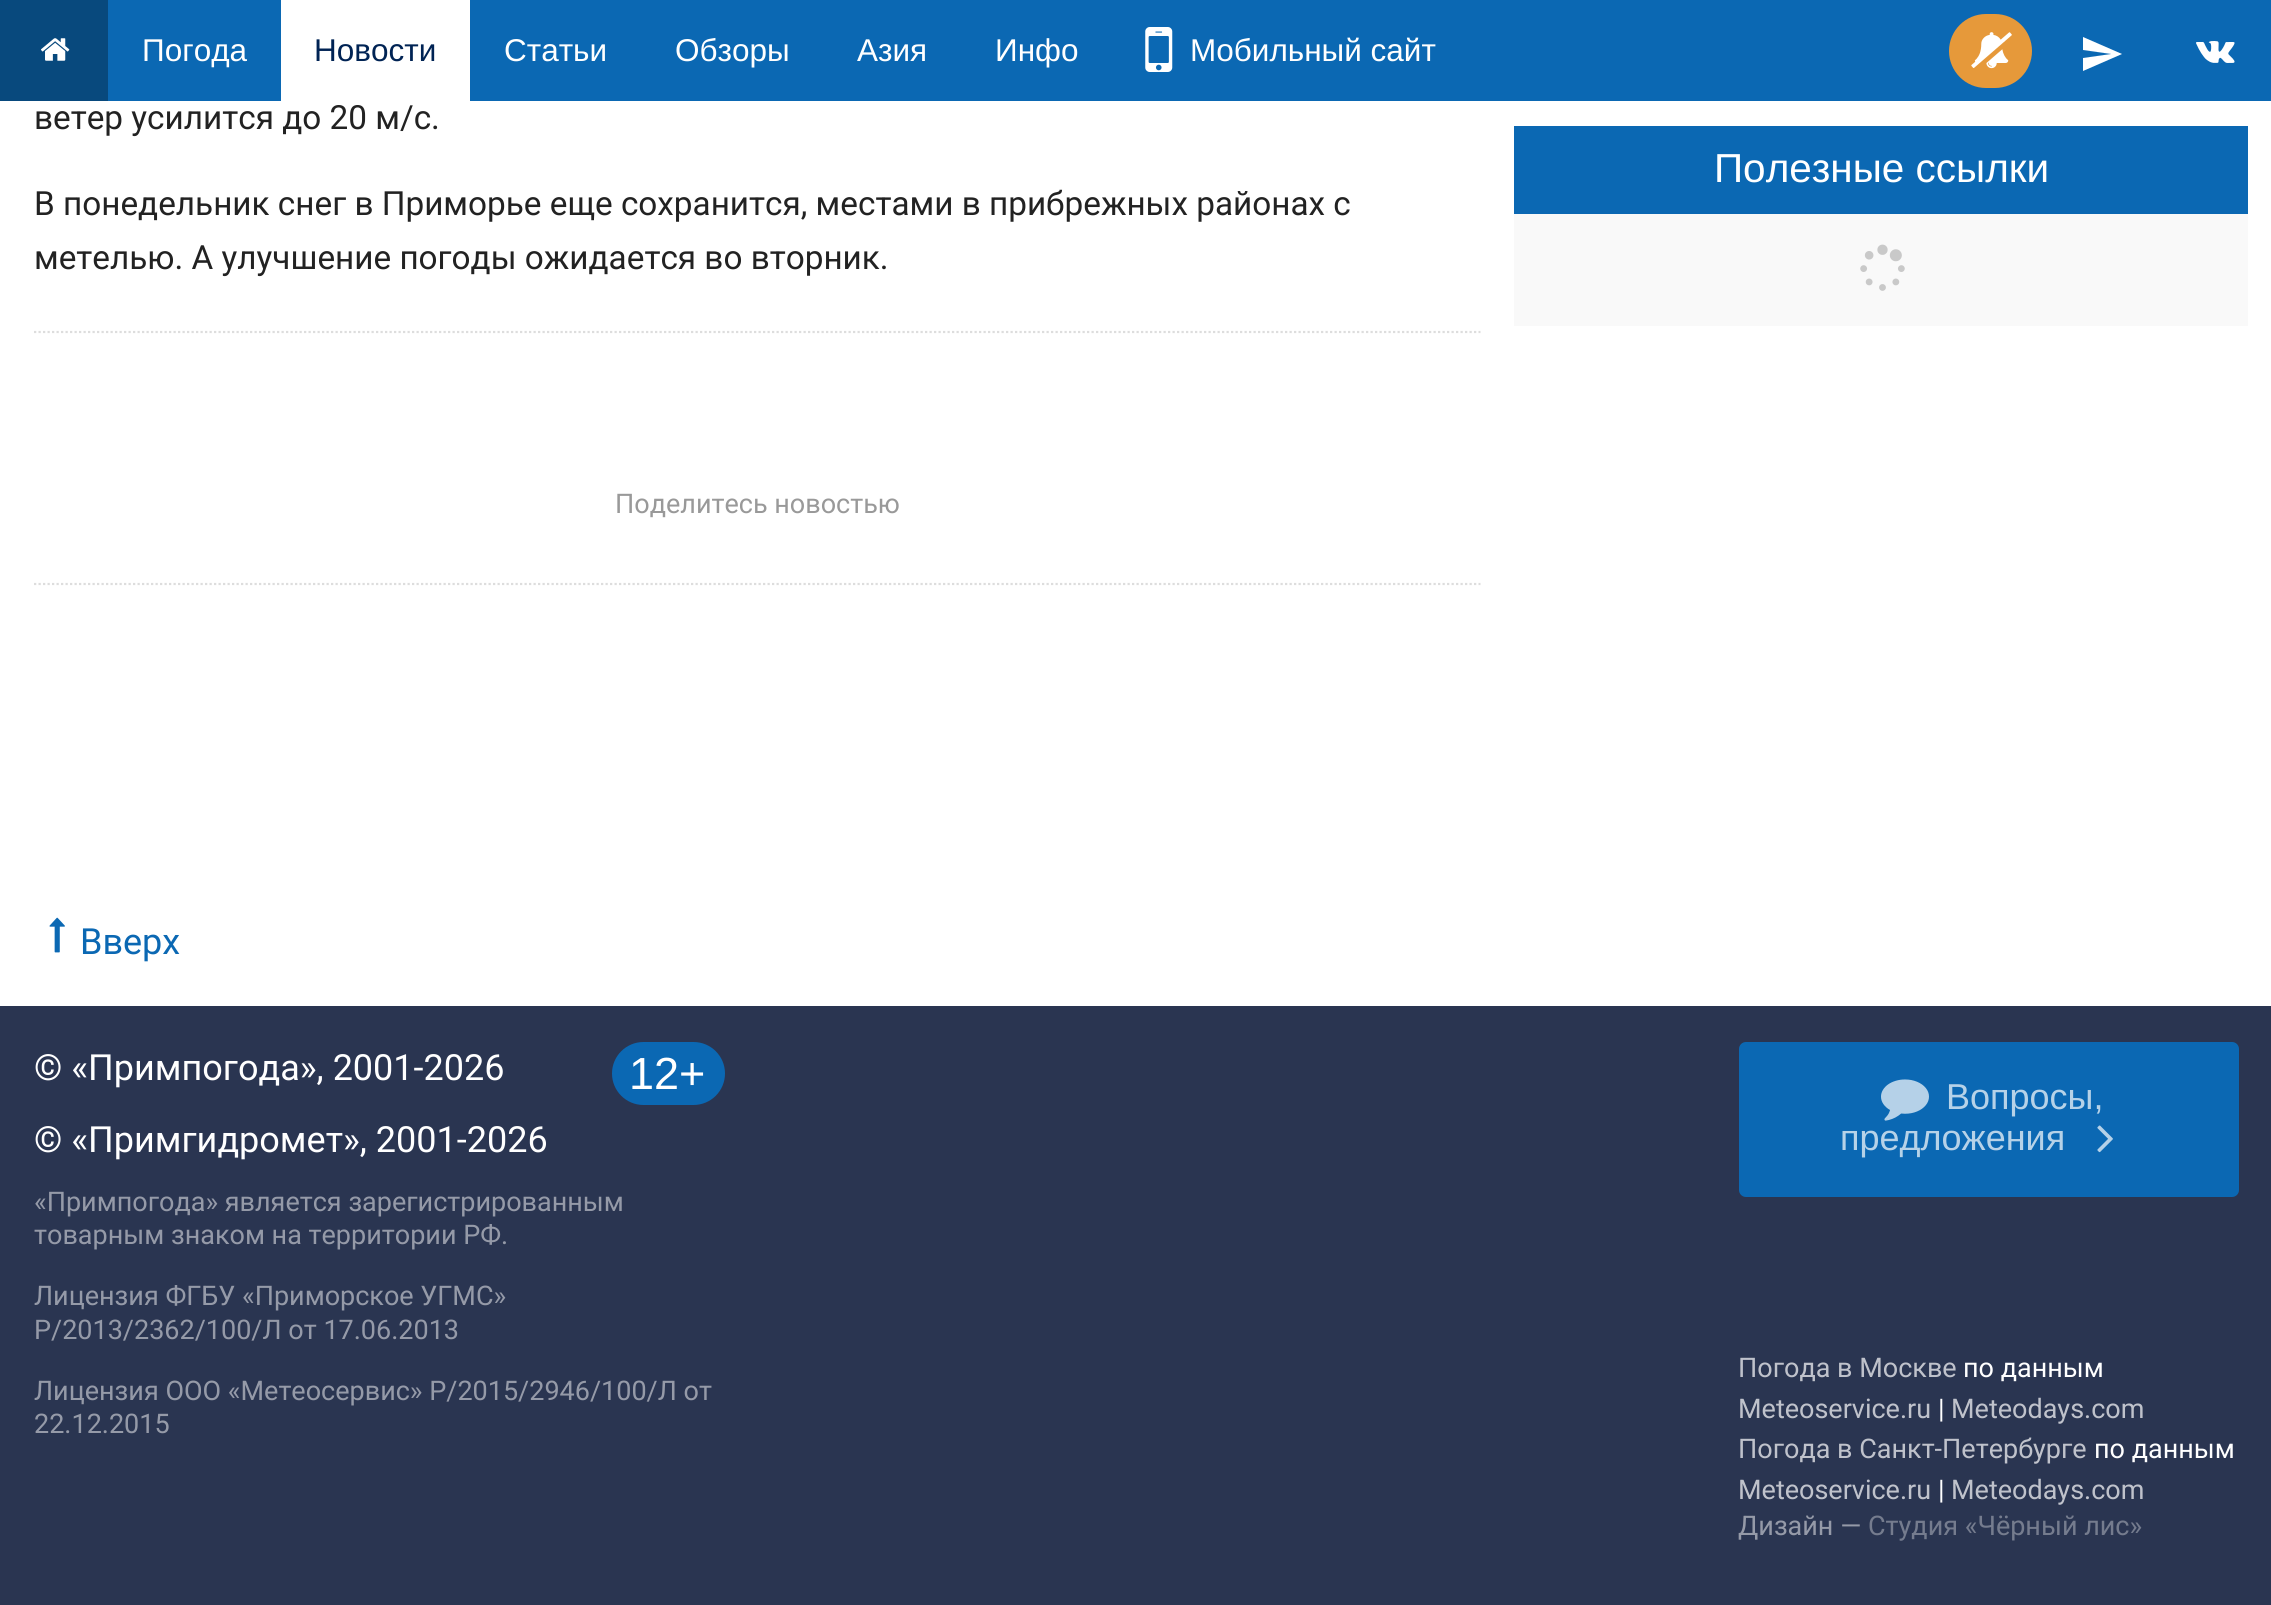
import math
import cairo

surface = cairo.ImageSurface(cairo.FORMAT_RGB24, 2271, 1605)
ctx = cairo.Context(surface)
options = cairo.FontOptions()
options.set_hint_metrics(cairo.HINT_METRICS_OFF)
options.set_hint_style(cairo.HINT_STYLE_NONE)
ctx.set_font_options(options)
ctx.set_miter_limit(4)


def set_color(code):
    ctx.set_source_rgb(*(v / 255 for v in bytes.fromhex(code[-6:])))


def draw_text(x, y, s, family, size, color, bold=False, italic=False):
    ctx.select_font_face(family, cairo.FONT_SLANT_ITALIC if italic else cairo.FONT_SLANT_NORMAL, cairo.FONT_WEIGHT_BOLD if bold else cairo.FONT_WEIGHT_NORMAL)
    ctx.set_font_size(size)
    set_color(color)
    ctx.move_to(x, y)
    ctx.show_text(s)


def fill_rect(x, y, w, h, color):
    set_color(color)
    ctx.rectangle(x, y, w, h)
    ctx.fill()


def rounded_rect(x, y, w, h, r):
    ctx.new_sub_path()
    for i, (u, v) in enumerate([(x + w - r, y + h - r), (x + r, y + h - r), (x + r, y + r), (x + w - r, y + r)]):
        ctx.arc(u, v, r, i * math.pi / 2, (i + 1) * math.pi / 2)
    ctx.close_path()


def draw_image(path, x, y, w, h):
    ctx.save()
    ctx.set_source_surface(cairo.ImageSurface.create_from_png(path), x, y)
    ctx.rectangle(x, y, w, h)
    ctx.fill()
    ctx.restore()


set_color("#ffffff")
ctx.paint()
fill_rect(108, 0, 2163, 101, "#0b68b3")
fill_rect(0, 0, 108, 101, "#08497d")
draw_image("assets/img1.png", 41, 38, 29, 23)
draw_text(142, 61, "Погода", "Liberation Sans", 31.5, "#ffffff")
fill_rect(281, 0, 189, 101, "#ffffff")
draw_text(314, 61, "Новости", "Liberation Sans", 31.5, "#002354")
draw_text(504, 61, "Статьи", "Liberation Sans", 31.5, "#ffffff")
draw_text(675, 61, "Обзоры", "Liberation Sans", 31.5, "#ffffff")
draw_text(857, 61, "Азия", "Liberation Sans", 31.5, "#ffffff")
draw_text(995, 61, "Инфо", "Liberation Sans", 31.5, "#ffffff")
draw_image("assets/img2.png", 1145, 27, 28, 45)
draw_text(1190, 61, "Мобильный сайт", "Liberation Sans", 31.5, "#ffffff")
set_color("#e6993a")
rounded_rect(1949, 14, 83, 74, 37)
ctx.fill()
draw_image("assets/img3.png", 1971, 32, 41, 37)
set_color("#ffffff")
ctx.new_path()
ctx.move_to(2083, 71)
ctx.line_to(2122, 54)
ctx.line_to(2083, 37)
ctx.line_to(2083, 50)
ctx.line_to(2111, 54)
ctx.line_to(2083, 58)
ctx.close_path()
ctx.fill()
draw_image("assets/img4.png", 2196, 41, 39, 22)
draw_text(34, 129, "ветер усилится до 20 м/с.", "Roboto", 33.3, "#222222")
draw_text(34, 215, "В понедельник снег в Приморье еще сохранится, местами в прибрежных районах с", "Roboto", 33.3, "#222222")
draw_text(34, 269, "метелью. А улучшение погоды ожидается во вторник.", "Roboto", 33.3, "#222222")
ctx.new_path()
ctx.move_to(34, 332)
ctx.line_to(1480.5, 332)
set_color("#dddddd")
ctx.set_line_width(2.2)
ctx.set_dash([2.25, 2.25])
ctx.stroke()
draw_text(615, 513, "Поделитесь новостью", "Roboto", 27, "#999999")
ctx.new_path()
ctx.move_to(34, 584)
ctx.line_to(1480.5, 584)
set_color("#dddddd")
ctx.stroke()
draw_image("assets/img5.png", 49, 917, 16, 36)
draw_text(80, 954, "Вверх", "Roboto", 36, "#0b68b3")
fill_rect(1514, 126, 734, 88, "#0b68b3")
draw_text(1714, 182, "Полезные ссылки", "Liberation Sans", 40.5, "#ffffff")
fill_rect(1514, 214, 734, 112, "#f9f9f9")
draw_image("assets/img6.png", 1860, 244, 45, 47)
fill_rect(0, 1006, 2271, 599, "#2a3551")
draw_text(34, 1080, "© «Примпогода», 2001-2026", "Roboto", 36, "#ffffff")
set_color("#0b68b3")
rounded_rect(612, 1042, 113, 63, 31.5)
ctx.fill()
draw_text(629, 1089, "12+", "Liberation Sans", 45, "#ffffff")
draw_text(34, 1152, "© «Примгидромет», 2001-2026", "Roboto", 36, "#ffffff")
draw_text(34, 1211, "«Примпогода» является зарегистрированным", "Roboto", 27, "#959aa8")
draw_text(34, 1244, "товарным знаком на территории РФ.", "Roboto", 27, "#959aa8")
draw_text(34, 1305, "Лицензия ФГБУ «Приморское УГМС»", "Roboto", 27, "#959aa8")
draw_text(34, 1339, "Р/2013/2362/100/Л от 17.06.2013", "Roboto", 27, "#959aa8")
draw_text(34, 1400, "Лицензия ООО «Метеосервис» Р/2015/2946/100/Л от", "Roboto", 27, "#959aa8")
draw_text(34, 1433, "22.12.2015", "Roboto", 27, "#959aa8")
set_color("#0b68b3")
rounded_rect(1739, 1042, 500, 155, 7)
ctx.fill()
draw_image("assets/img7.png", 1881, 1079, 48, 42)
draw_text(1946, 1109, "Вопросы,", "Liberation Sans", 36, "#b6d2e8")
draw_text(1840, 1150, "предложения", "Liberation Sans", 36, "#b6d2e8")
draw_image("assets/img8.png", 2097, 1125, 16, 28)
draw_text(1738, 1377, "Погода в Москве", "Roboto", 27, "#bfc2cb")
draw_text(1963, 1377, "по данным", "Roboto", 27, "#ffffff")
draw_text(1738, 1418, "Meteoservice.ru", "Roboto", 27, "#bfc2cb")
draw_text(1938, 1418, "|", "Roboto", 27, "#ffffff")
draw_text(1951, 1418, "Meteodays.com", "Roboto", 27, "#bfc2cb")
draw_text(1738, 1458, "Погода в Санкт-Петербурге", "Roboto", 27, "#bfc2cb")
draw_text(2094, 1458, "по данным", "Roboto", 27, "#ffffff")
draw_text(1738, 1499, "Meteoservice.ru", "Roboto", 27, "#bfc2cb")
draw_text(1938, 1499, "|", "Roboto", 27, "#ffffff")
draw_text(1951, 1499, "Meteodays.com", "Roboto", 27, "#bfc2cb")
draw_text(1738, 1535, "Дизайн —", "Roboto", 27, "#959aa8")
draw_text(1868, 1535, "Студия «Чёрный лис»", "Roboto", 27, "#757c8e")
surface.write_to_png("output.png")
